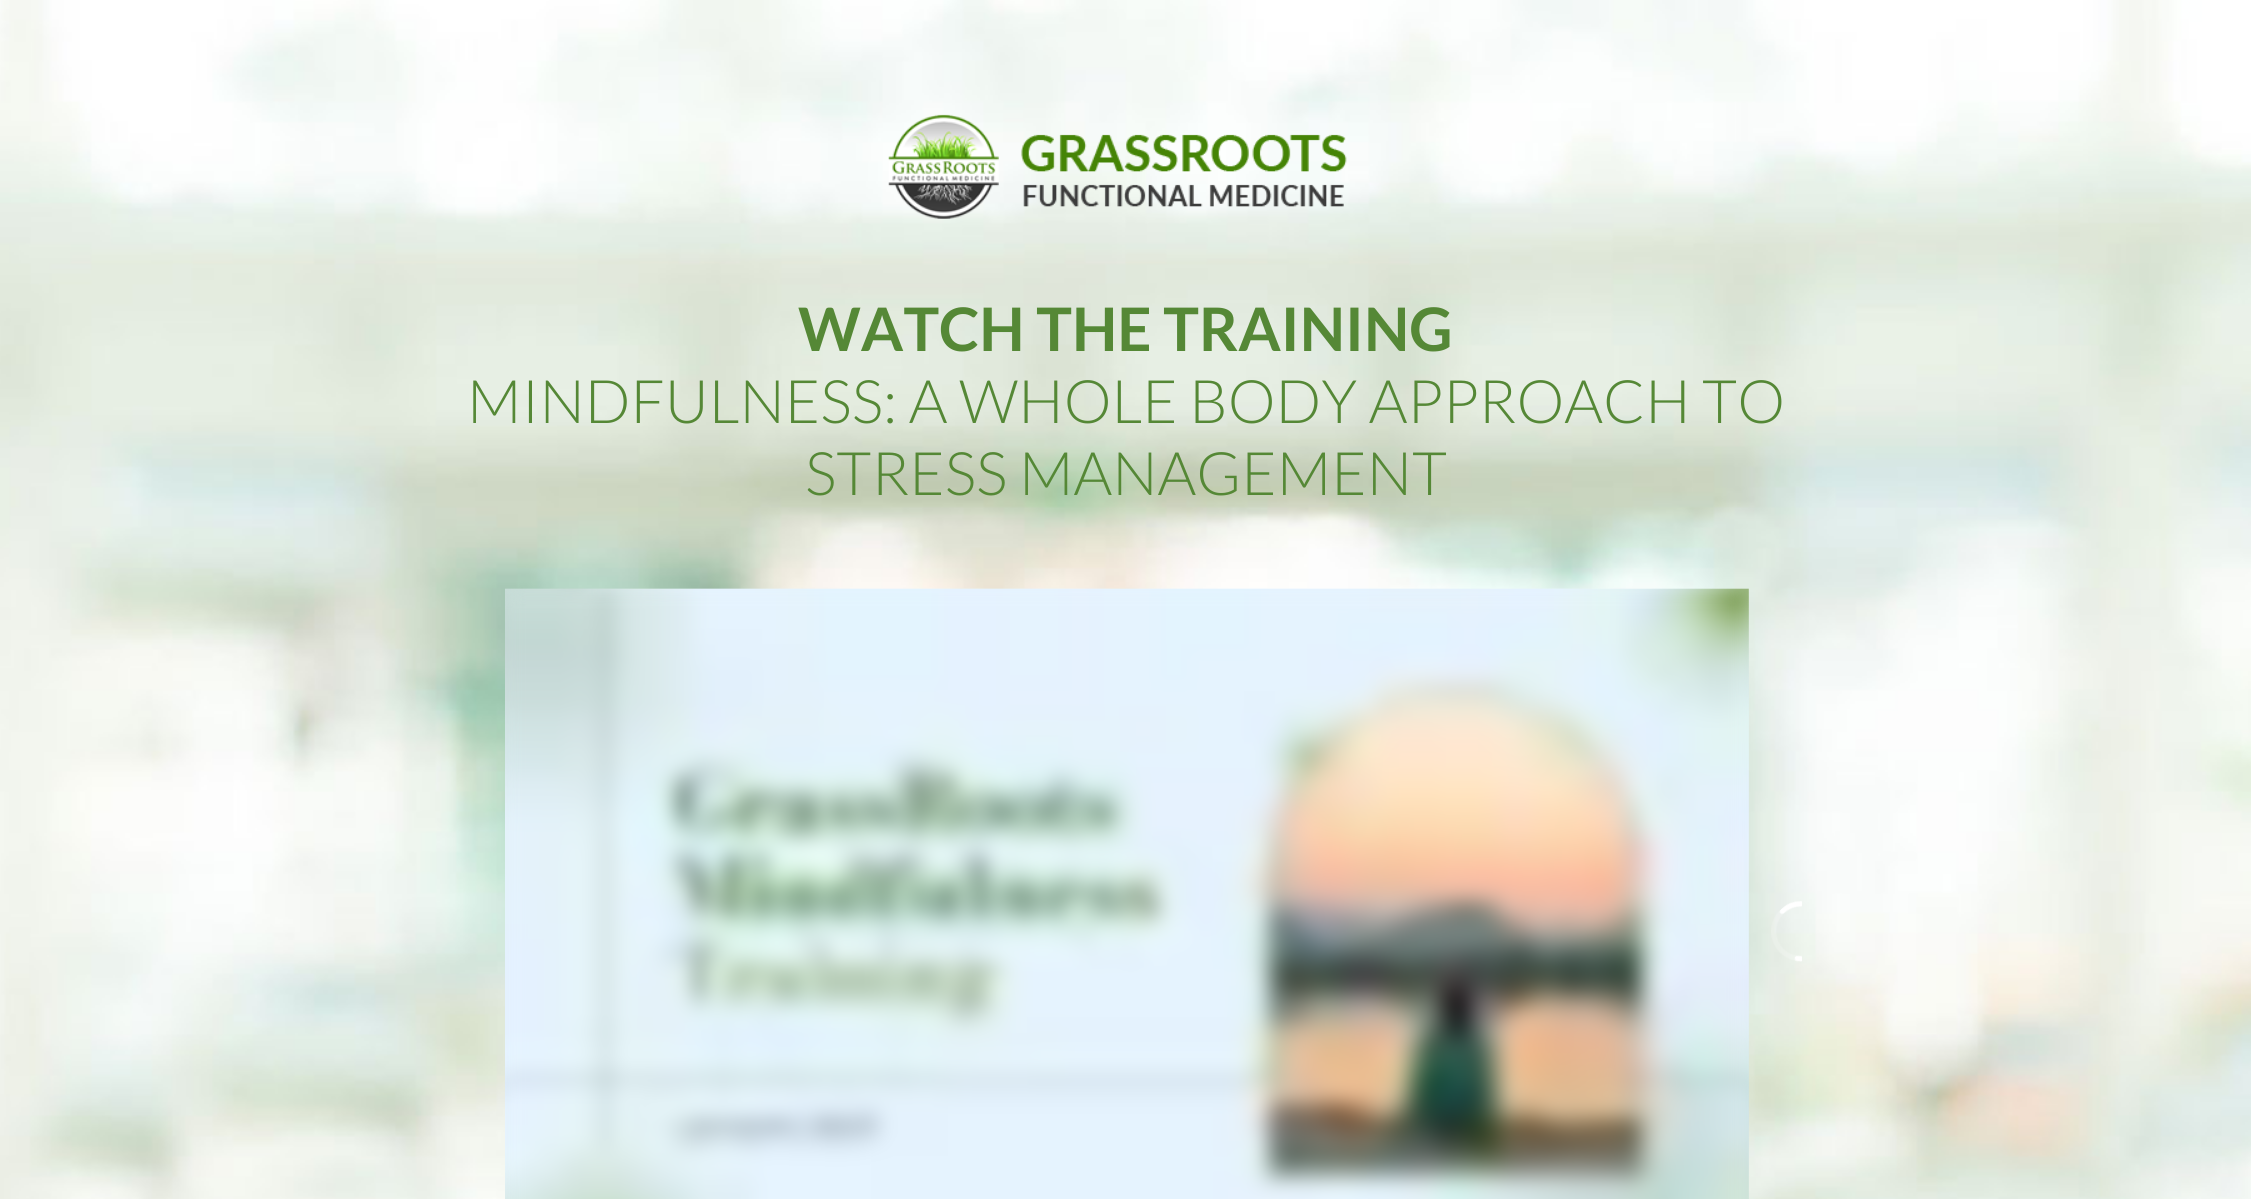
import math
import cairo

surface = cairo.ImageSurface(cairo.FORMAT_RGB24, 2251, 1199)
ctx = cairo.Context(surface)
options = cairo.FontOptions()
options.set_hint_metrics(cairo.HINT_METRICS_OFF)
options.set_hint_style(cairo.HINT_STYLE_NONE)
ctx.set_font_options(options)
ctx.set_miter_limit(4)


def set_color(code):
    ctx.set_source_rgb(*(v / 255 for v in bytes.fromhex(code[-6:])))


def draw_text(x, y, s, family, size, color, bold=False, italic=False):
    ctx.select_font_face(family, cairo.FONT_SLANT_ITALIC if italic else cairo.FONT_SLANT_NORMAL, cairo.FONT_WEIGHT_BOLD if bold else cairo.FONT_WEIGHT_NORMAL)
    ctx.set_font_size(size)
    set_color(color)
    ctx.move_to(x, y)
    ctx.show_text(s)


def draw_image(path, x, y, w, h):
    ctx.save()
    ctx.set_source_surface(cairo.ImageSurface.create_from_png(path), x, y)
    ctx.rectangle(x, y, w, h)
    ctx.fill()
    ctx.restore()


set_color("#ffffff")
ctx.paint()
draw_image("assets/img1.png", 0, 0, 2251, 1199)
draw_image("assets/img2.png", 888, 114, 459, 105)
draw_text(798, 351, "WATCH THE TRAINING", "Lato", 60, "#558836", bold=True)
draw_text(467, 423, "MINDFULNESS: A WHOLE BODY APPROACH TO", "Lato Light", 60, "#558836")
draw_text(805, 495, "STRESS MANAGEMENT", "Lato Light", 60, "#558836")
draw_image("assets/img3.png", 505, 588, 1297, 611)
surface.write_to_png("output.png")
